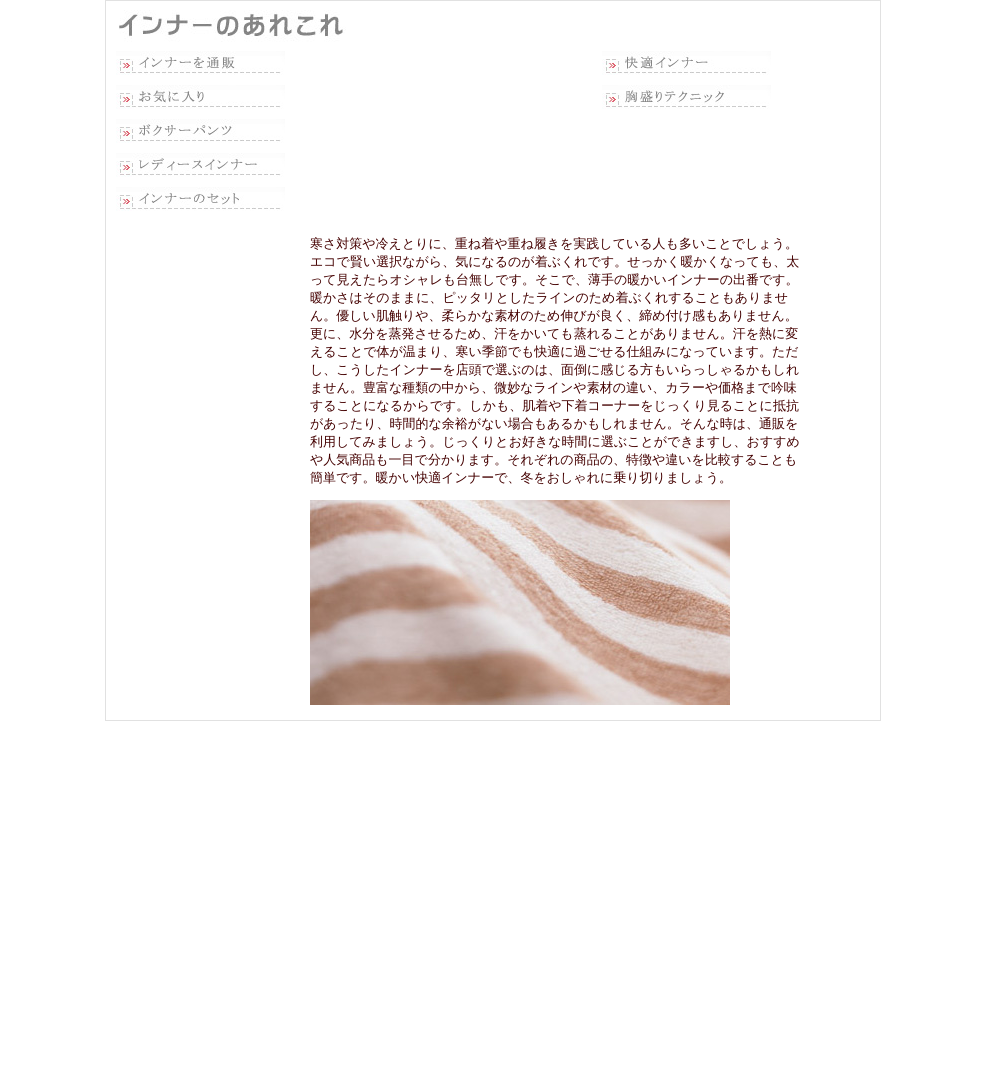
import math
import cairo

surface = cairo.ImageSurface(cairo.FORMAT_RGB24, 985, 1075)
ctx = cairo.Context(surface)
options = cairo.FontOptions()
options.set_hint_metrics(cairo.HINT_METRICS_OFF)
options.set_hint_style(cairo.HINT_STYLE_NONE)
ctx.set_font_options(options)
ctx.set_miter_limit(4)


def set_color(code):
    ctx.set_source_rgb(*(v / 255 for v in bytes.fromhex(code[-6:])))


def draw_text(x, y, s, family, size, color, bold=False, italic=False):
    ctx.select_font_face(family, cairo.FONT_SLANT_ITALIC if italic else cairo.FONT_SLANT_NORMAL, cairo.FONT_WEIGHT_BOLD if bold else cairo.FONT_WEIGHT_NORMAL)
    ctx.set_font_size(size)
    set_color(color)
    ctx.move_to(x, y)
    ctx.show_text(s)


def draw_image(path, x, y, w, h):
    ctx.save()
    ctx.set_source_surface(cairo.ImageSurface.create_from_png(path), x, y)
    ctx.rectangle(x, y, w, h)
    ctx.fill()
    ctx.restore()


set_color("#ffffff")
ctx.paint()
ctx.rectangle(105.5, 0.5, 775, 720)
set_color("#e1e1e1")
ctx.set_line_width(1)
ctx.stroke()
draw_image("assets/img1.png", 119, 10, 227, 32)
draw_image("assets/img2.png", 116, 51, 169, 24)
draw_image("assets/img3.png", 602, 51, 169, 24)
draw_image("assets/img4.png", 116, 85, 169, 24)
draw_image("assets/img5.png", 602, 85, 169, 24)
draw_image("assets/img6.png", 116, 119, 169, 24)
draw_image("assets/img7.png", 116, 153, 169, 24)
draw_image("assets/img8.png", 116, 187, 169, 24)
draw_text(310, 248, "寒さ対策や冷えとりに、重ね着や重ね履きを実践している人も多いことでしょう。", "WenQuanYi Zen Hei Medium", 13, "#440000")
draw_text(310, 266, "エコで賢い選択ながら、気になるのが着ぶくれです。せっかく暖かくなっても、太", "WenQuanYi Zen Hei Medium", 13, "#440000")
draw_text(310, 284, "って見えたらオシャレも台無しです。そこで、薄手の暖かいインナーの出番です。", "WenQuanYi Zen Hei Medium", 13, "#440000")
draw_text(310, 302, "暖かさはそのままに、ピッタリとしたラインのため着ぶくれすることもありませ", "WenQuanYi Zen Hei Medium", 13, "#440000")
draw_text(310, 320, "ん。優しい肌触りや、柔らかな素材のため伸びが良く、締め付け感もありません。", "WenQuanYi Zen Hei Medium", 13, "#440000")
draw_text(310, 338, "更に、水分を蒸発させるため、汗をかいても蒸れることがありません。汗を熱に変", "WenQuanYi Zen Hei Medium", 13, "#440000")
draw_text(310, 356, "えることで体が温まり、寒い季節でも快適に過ごせる仕組みになっています。ただ", "WenQuanYi Zen Hei Medium", 13, "#440000")
draw_text(310, 374, "し、こうしたインナーを店頭で選ぶのは、面倒に感じる方もいらっしゃるかもしれ", "WenQuanYi Zen Hei Medium", 13, "#440000")
draw_text(310, 392, "ません。豊富な種類の中から、微妙なラインや素材の違い、カラーや価格まで吟味", "WenQuanYi Zen Hei Medium", 13, "#440000")
draw_text(310, 410, "することになるからです。しかも、肌着や下着コーナーをじっくり見ることに抵抗", "WenQuanYi Zen Hei Medium", 13, "#440000")
draw_text(310, 428, "があったり、時間的な余裕がない場合もあるかもしれません。そんな時は、通販を", "WenQuanYi Zen Hei Medium", 13, "#440000")
draw_text(310, 446, "利用してみましょう。じっくりとお好きな時間に選ぶことができますし、おすすめ", "WenQuanYi Zen Hei Medium", 13, "#440000")
draw_text(310, 464, "や人気商品も一目で分かります。それぞれの商品の、特徴や違いを比較することも", "WenQuanYi Zen Hei Medium", 13, "#440000")
draw_text(310, 482, "簡単です。暖かい快適インナーで、冬をおしゃれに乗り切りましょう。", "WenQuanYi Zen Hei Medium", 13, "#440000")
draw_image("assets/img9.png", 310, 500, 420, 205)
surface.write_to_png("output.png")
